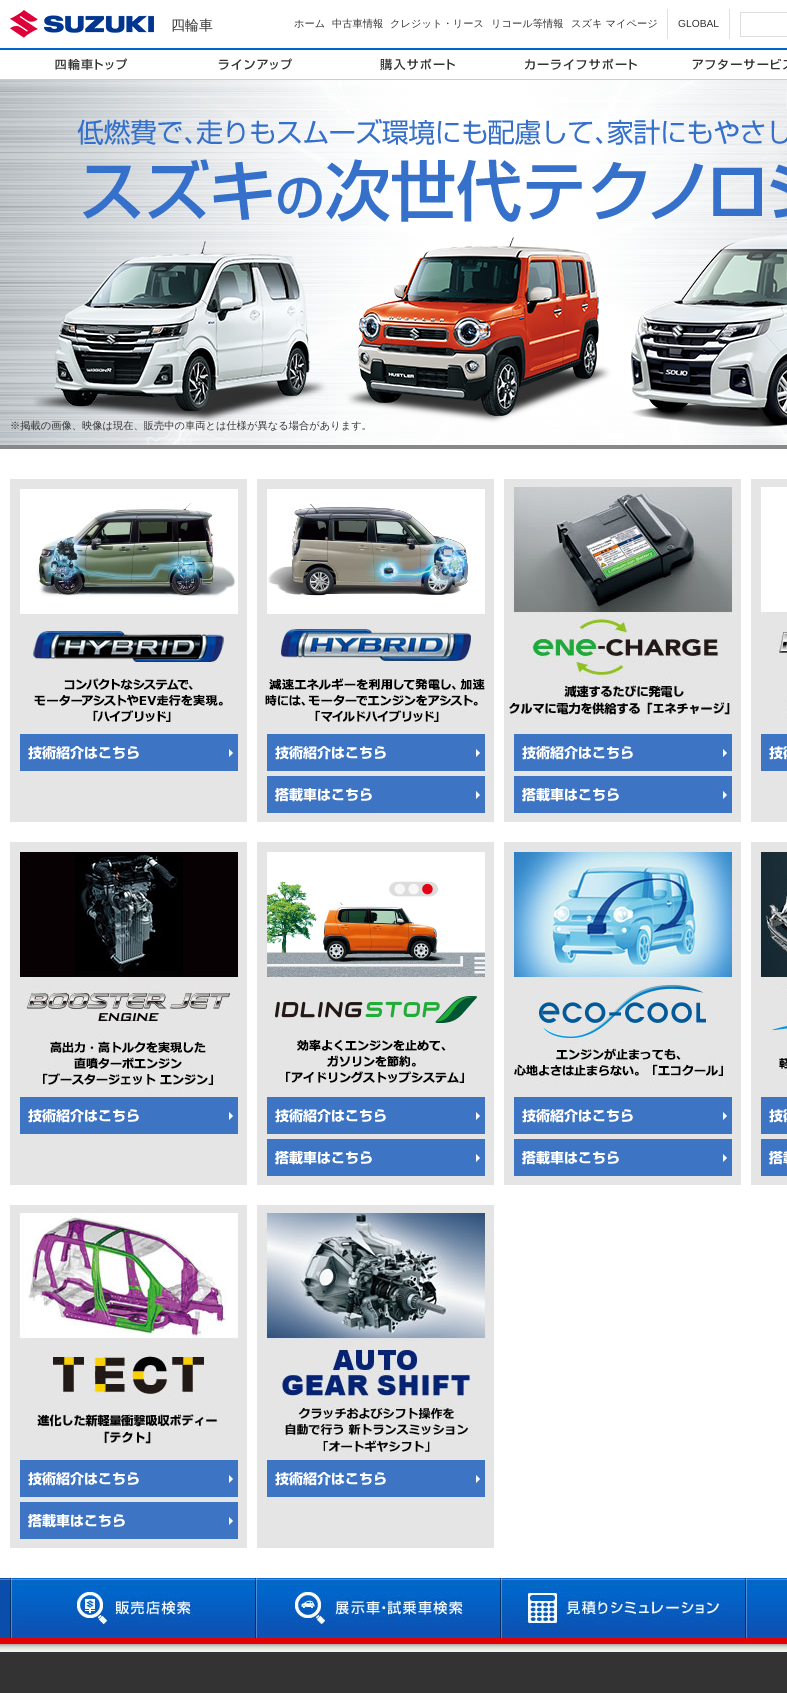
import math
import cairo

surface = cairo.ImageSurface(cairo.FORMAT_RGB24, 787, 1693)
ctx = cairo.Context(surface)
options = cairo.FontOptions()
options.set_hint_metrics(cairo.HINT_METRICS_OFF)
options.set_hint_style(cairo.HINT_STYLE_NONE)
ctx.set_font_options(options)
ctx.set_miter_limit(4)


def set_color(code):
    ctx.set_source_rgb(*(v / 255 for v in bytes.fromhex(code[-6:])))


def draw_text(x, y, s, family, size, color, bold=False, italic=False):
    ctx.select_font_face(family, cairo.FONT_SLANT_ITALIC if italic else cairo.FONT_SLANT_NORMAL, cairo.FONT_WEIGHT_BOLD if bold else cairo.FONT_WEIGHT_NORMAL)
    ctx.set_font_size(size)
    set_color(color)
    ctx.move_to(x, y)
    ctx.show_text(s)


def fill_rect(x, y, w, h, color):
    set_color(color)
    ctx.rectangle(x, y, w, h)
    ctx.fill()


def draw_image(path, x, y, w, h):
    ctx.save()
    ctx.set_source_surface(cairo.ImageSurface.create_from_png(path), x, y)
    ctx.rectangle(x, y, w, h)
    ctx.fill()
    ctx.restore()


set_color("#ffffff")
ctx.paint()
fill_rect(0, 48, 787, 2, "#0066cc")
draw_image("assets/img1.png", 10, 10, 144, 28)
draw_text(171, 30, "四輪車", "WenQuanYi Zen Hei Medium", 14, "#333333")
draw_text(294, 27, "ホーム", "WenQuanYi Zen Hei Medium", 10.25, "#333333")
draw_text(332, 27, "中古車情報", "WenQuanYi Zen Hei Medium", 10.25, "#333333")
draw_text(390, 27, "クレジット・リース", "WenQuanYi Zen Hei Medium", 10.25, "#333333")
draw_text(491, 27, "リコール等情報", "WenQuanYi Zen Hei Medium", 10.25, "#333333")
draw_text(571, 27, "スズキ マイページ", "WenQuanYi Zen Hei Medium", 10.25, "#333333")
fill_rect(667, 9, 1, 30, "#e0e0e0")
draw_text(678, 27, "GLOBAL", "Liberation Sans", 10.25, "#333333")
fill_rect(729, 9, 1, 30, "#e0e0e0")
ctx.rectangle(740.5, 12.5, 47, 24)
set_color("#dddddd")
ctx.set_line_width(1)
ctx.stroke()
fill_rect(0, 79, 787, 1, "#cccccc")
draw_image("assets/img2.png", 55, 58, 72, 13)
draw_image("assets/img3.png", 218, 58, 74, 12)
draw_image("assets/img4.png", 380, 58, 75, 13)
draw_image("assets/img5.png", 524, 58, 113, 12)
draw_image("assets/img6.png", 692, 58, 95, 12)
draw_image("assets/img7.png", 0, 80, 787, 365)
fill_rect(0, 445, 787, 4, "#888888")
draw_image("assets/img8.png", 33, 119, 754, 308)
draw_text(10, 429, "※掲載の画像、映像は現在、販売中の車両とは仕様が異なる場合があります。", "WenQuanYi Zen Hei Medium", 10.25, "#333333")
draw_image("assets/img9.png", 10, 479, 237, 343)
draw_image("assets/img10.png", 20, 734, 218, 37)
draw_image("assets/img11.png", 257, 479, 237, 343)
draw_image("assets/img10.png", 267, 734, 218, 37)
draw_image("assets/img12.png", 267, 776, 218, 37)
draw_image("assets/img13.png", 504, 479, 237, 343)
draw_image("assets/img10.png", 514, 734, 218, 37)
draw_image("assets/img12.png", 514, 776, 218, 37)
draw_image("assets/img14.png", 751, 479, 36, 343)
draw_image("assets/img15.png", 761, 734, 26, 37)
draw_image("assets/img16.png", 10, 842, 237, 343)
draw_image("assets/img10.png", 20, 1097, 218, 37)
draw_image("assets/img17.png", 257, 842, 237, 343)
draw_image("assets/img10.png", 267, 1097, 218, 37)
draw_image("assets/img12.png", 267, 1139, 218, 37)
draw_image("assets/img18.png", 504, 842, 237, 343)
draw_image("assets/img10.png", 514, 1097, 218, 37)
draw_image("assets/img12.png", 514, 1139, 218, 37)
draw_image("assets/img19.png", 751, 842, 36, 343)
draw_image("assets/img15.png", 761, 1097, 26, 37)
draw_image("assets/img20.png", 761, 1139, 26, 37)
draw_image("assets/img21.png", 10, 1205, 237, 343)
draw_image("assets/img10.png", 20, 1460, 218, 37)
draw_image("assets/img12.png", 20, 1502, 218, 37)
draw_image("assets/img22.png", 257, 1205, 237, 343)
draw_image("assets/img10.png", 267, 1460, 218, 37)
fill_rect(0, 1650, 787, 2, "#f4f3f1")
draw_image("assets/img23.png", 0, 1578, 787, 72)
draw_image("assets/img24.png", 10, 1578, 245, 60)
draw_image("assets/img25.png", 255, 1578, 245, 60)
draw_image("assets/img26.png", 500, 1578, 245, 60)
draw_image("assets/img27.png", 745, 1578, 42, 60)
fill_rect(0, 1652, 787, 41, "#333333")
surface.write_to_png("output.png")
